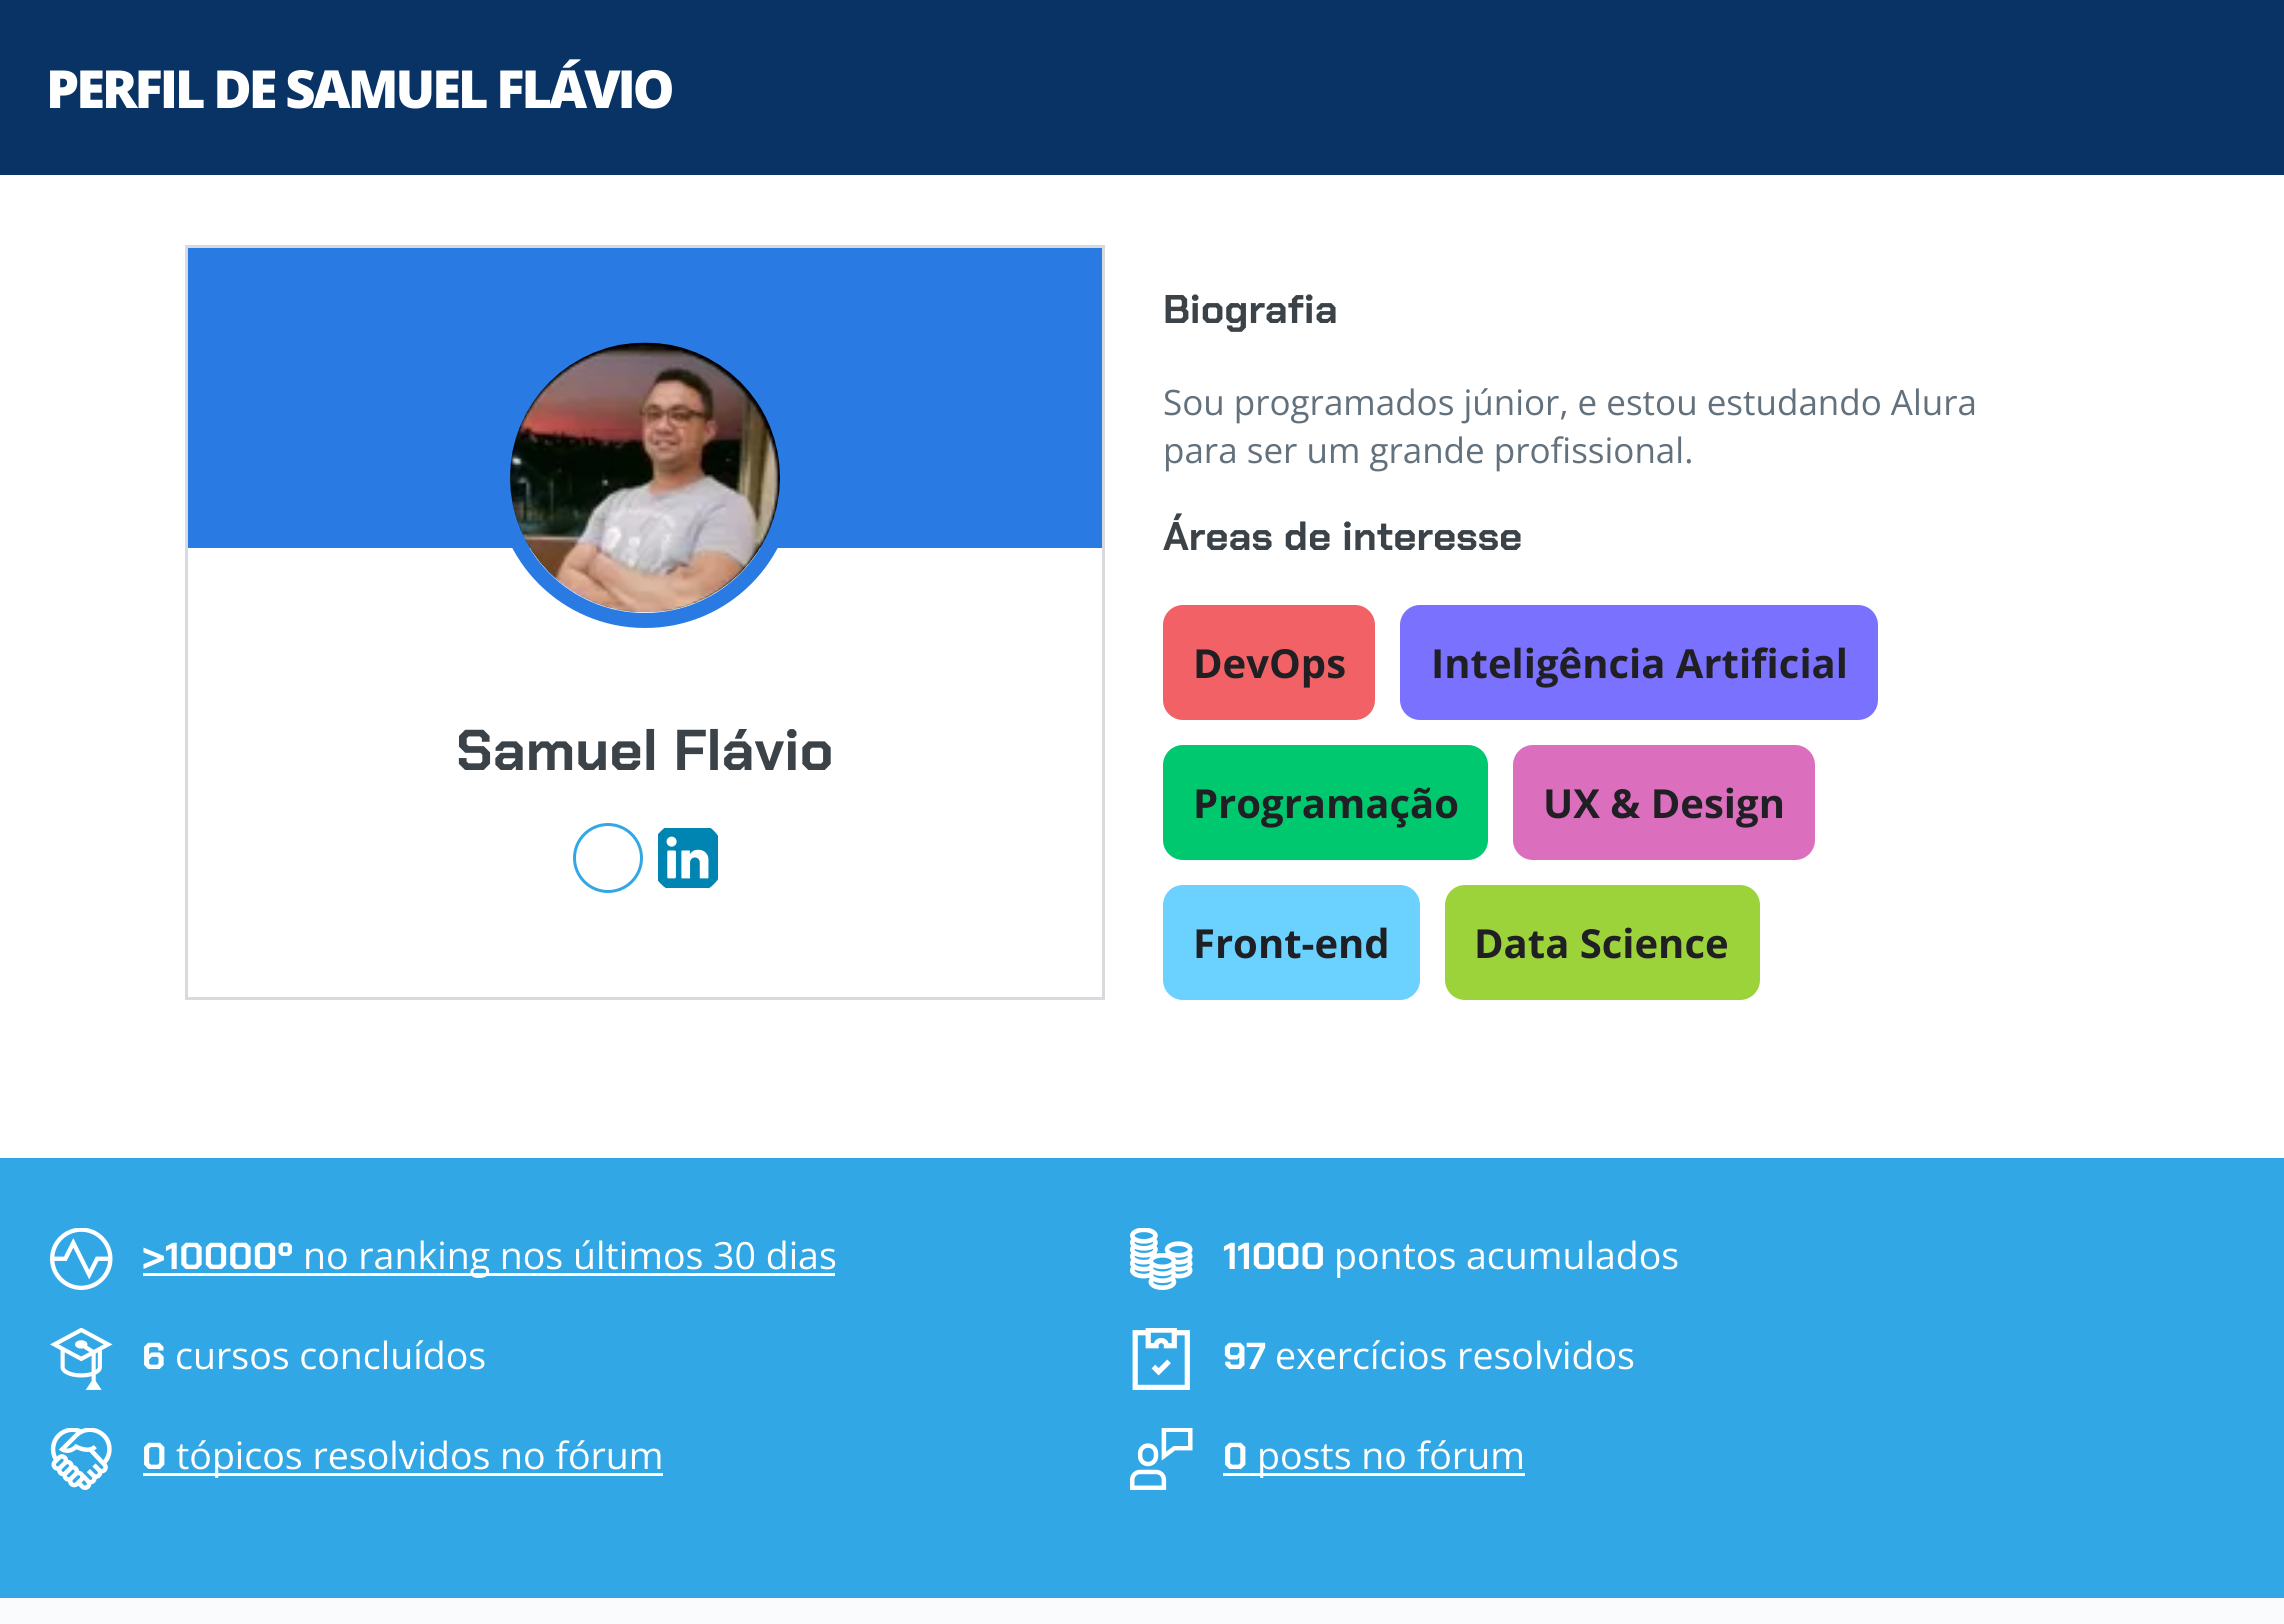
import math
import cairo

surface = cairo.ImageSurface(cairo.FORMAT_RGB24, 2284, 1624)
ctx = cairo.Context(surface)
options = cairo.FontOptions()
options.set_hint_metrics(cairo.HINT_METRICS_OFF)
options.set_hint_style(cairo.HINT_STYLE_NONE)
ctx.set_font_options(options)
ctx.set_miter_limit(4)


def set_color(code):
    ctx.set_source_rgb(*(v / 255 for v in bytes.fromhex(code[-6:])))


def draw_text(x, y, s, family, size, color, bold=False, italic=False):
    ctx.select_font_face(family, cairo.FONT_SLANT_ITALIC if italic else cairo.FONT_SLANT_NORMAL, cairo.FONT_WEIGHT_BOLD if bold else cairo.FONT_WEIGHT_NORMAL)
    ctx.set_font_size(size)
    set_color(color)
    ctx.move_to(x, y)
    ctx.show_text(s)


def draw_spaced(x, y, s, letter, word):
    ctx.move_to(x, y)
    for ch in s:
        ctx.show_text(ch)
        ctx.rel_move_to(letter + word * (ch == ' '), 0)


def fill_rect(x, y, w, h, color):
    set_color(color)
    ctx.rectangle(x, y, w, h)
    ctx.fill()


def rounded_rect(x, y, w, h, r):
    ctx.new_sub_path()
    for i, (u, v) in enumerate([(x + w - r, y + h - r), (x + r, y + h - r), (x + r, y + r), (x + w - r, y + r)]):
        ctx.arc(u, v, r, i * math.pi / 2, (i + 1) * math.pi / 2)
    ctx.close_path()


def draw_image(path, x, y, w, h):
    ctx.save()
    ctx.set_source_surface(cairo.ImageSurface.create_from_png(path), x, y)
    ctx.rectangle(x, y, w, h)
    ctx.fill()
    ctx.restore()


set_color("#f9fbfd")
ctx.paint()
fill_rect(0, 0, 2284, 175, "#093364")
ctx.select_font_face("Open Sans ExtraBold")
ctx.set_font_size(52.5)
set_color("#ffffff")
draw_spaced(46, 108, "PERFIL DE SAMUEL FLÁVIO", -3, 0)
fill_rect(0, 175, 2284, 983, "#ffffff")
fill_rect(188, 248, 914, 300, "#2a7ae4")
ctx.rectangle(186.5, 246.5, 917, 752)
set_color("#d7dbdf")
ctx.set_line_width(3)
ctx.stroke()
ctx.arc(645, 478, 142.5, 0, 2 * math.pi)
set_color("#2a7ae4")
ctx.set_line_width(15)
ctx.stroke()
draw_image("assets/img1.png", 510, 342, 270, 271)
draw_text(456, 770, "Samuel Flávio", "Chakra Petch", 57.5, "#3b4349", bold=True)
ctx.new_path()
ctx.arc(608, 858, 33.5, 0, 2 * math.pi)
set_color("#32a7e5")
ctx.set_line_width(3)
ctx.stroke()
draw_image("assets/img2.png", 658, 828, 60, 60)
draw_text(1163, 323, "Biografia", "Chakra Petch", 40, "#3b4349", bold=True)
draw_text(1163, 415, "Sou programados júnior, e estou estudando Alura", "Open Sans", 35, "#63717d")
draw_text(1163, 463, "para ser um grande profissional.", "Open Sans", 35, "#63717d")
draw_text(1163, 550, "Áreas de interesse", "Chakra Petch", 40, "#3b4349", bold=True)
set_color("#f16165")
rounded_rect(1163, 605, 212, 115, 20)
ctx.fill()
draw_text(1193, 678, "DevOps", "Open Sans", 40, "#202024", bold=True)
set_color("#7b71ff")
rounded_rect(1400, 605, 478, 115, 20)
ctx.fill()
draw_text(1431, 678, "Inteligência Artificial", "Open Sans", 40, "#202024", bold=True)
set_color("#00c86f")
rounded_rect(1163, 745, 325, 115, 20)
ctx.fill()
draw_text(1193, 818, "Programação", "Open Sans", 40, "#202024", bold=True)
set_color("#dc6ebe")
rounded_rect(1513, 745, 302, 115, 20)
ctx.fill()
draw_text(1543, 818, "UX & Design", "Open Sans", 40, "#202024", bold=True)
set_color("#6bd1ff")
rounded_rect(1163, 885, 257, 115, 20)
ctx.fill()
draw_text(1193, 958, "Front-end", "Open Sans", 40, "#202024", bold=True)
set_color("#9cd33b")
rounded_rect(1445, 885, 315, 115, 20)
ctx.fill()
draw_text(1474, 958, "Data Science", "Open Sans", 40, "#202024", bold=True)
fill_rect(0, 1158, 2284, 440, "#32a7e5")
draw_image("assets/img3.png", 50, 1228, 63, 62)
draw_text(142, 1269, ">10000º", "Chakra Petch", 37.5, "#ffffff", bold=True)
fill_rect(143, 1273, 692, 3, "#ffffff")
draw_text(303, 1269, "no ranking nos últimos 30 dias", "Open Sans", 37.5, "#ffffff")
draw_image("assets/img4.png", 1130, 1228, 63, 62)
draw_text(1223, 1269, "11000", "Chakra Petch", 37.5, "#ffffff", bold=True)
draw_text(1334, 1269, "pontos acumulados", "Open Sans", 37.5, "#ffffff")
draw_image("assets/img5.png", 50, 1328, 63, 62)
draw_text(142, 1369, "6", "Chakra Petch", 37.5, "#ffffff", bold=True)
draw_text(175, 1369, "cursos concluídos", "Open Sans", 37.5, "#ffffff")
draw_image("assets/img6.png", 1132, 1328, 58, 62)
draw_text(1223, 1369, "97", "Chakra Petch", 37.5, "#ffffff", bold=True)
draw_text(1275, 1369, "exercícios resolvidos", "Open Sans", 37.5, "#ffffff")
draw_image("assets/img7.png", 50, 1428, 62, 62)
draw_text(142, 1469, "0", "Chakra Petch", 37.5, "#ffffff", bold=True)
fill_rect(143, 1473, 520, 3, "#ffffff")
draw_text(176, 1469, "tópicos resolvidos no fórum", "Open Sans", 37.5, "#ffffff")
draw_image("assets/img8.png", 1130, 1428, 63, 62)
draw_text(1223, 1469, "0", "Chakra Petch", 37.5, "#ffffff", bold=True)
fill_rect(1223, 1473, 302, 3, "#ffffff")
draw_text(1257, 1469, "posts no fórum", "Open Sans", 37.5, "#ffffff")
surface.write_to_png("output.png")
